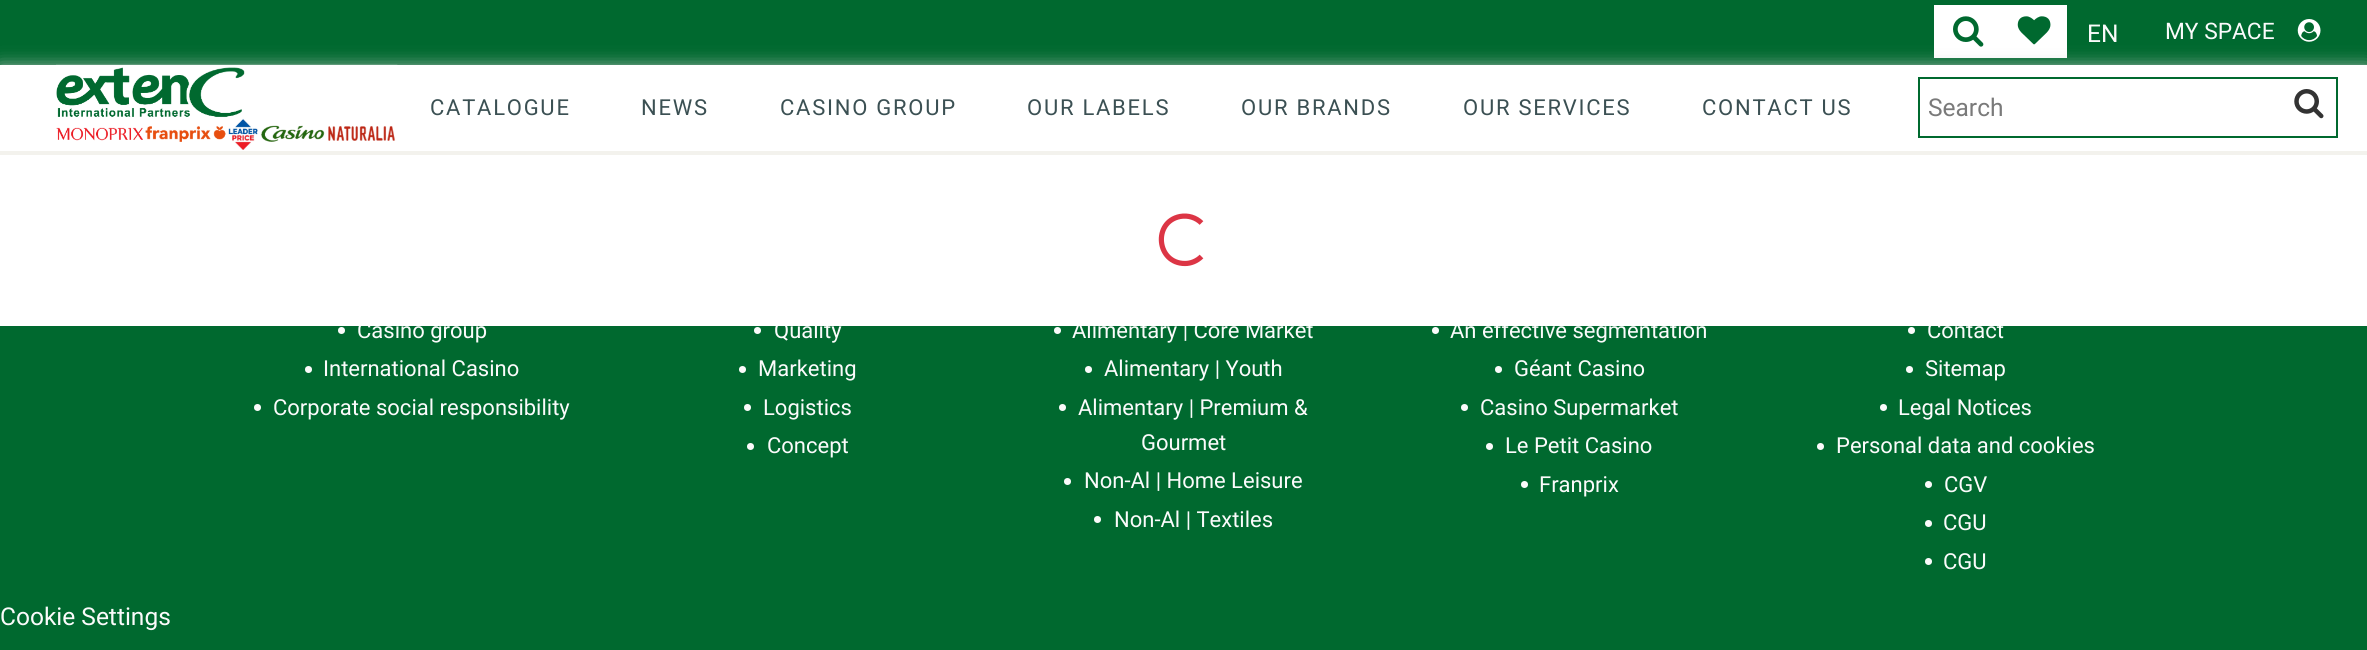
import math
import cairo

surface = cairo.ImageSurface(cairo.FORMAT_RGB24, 2367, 650)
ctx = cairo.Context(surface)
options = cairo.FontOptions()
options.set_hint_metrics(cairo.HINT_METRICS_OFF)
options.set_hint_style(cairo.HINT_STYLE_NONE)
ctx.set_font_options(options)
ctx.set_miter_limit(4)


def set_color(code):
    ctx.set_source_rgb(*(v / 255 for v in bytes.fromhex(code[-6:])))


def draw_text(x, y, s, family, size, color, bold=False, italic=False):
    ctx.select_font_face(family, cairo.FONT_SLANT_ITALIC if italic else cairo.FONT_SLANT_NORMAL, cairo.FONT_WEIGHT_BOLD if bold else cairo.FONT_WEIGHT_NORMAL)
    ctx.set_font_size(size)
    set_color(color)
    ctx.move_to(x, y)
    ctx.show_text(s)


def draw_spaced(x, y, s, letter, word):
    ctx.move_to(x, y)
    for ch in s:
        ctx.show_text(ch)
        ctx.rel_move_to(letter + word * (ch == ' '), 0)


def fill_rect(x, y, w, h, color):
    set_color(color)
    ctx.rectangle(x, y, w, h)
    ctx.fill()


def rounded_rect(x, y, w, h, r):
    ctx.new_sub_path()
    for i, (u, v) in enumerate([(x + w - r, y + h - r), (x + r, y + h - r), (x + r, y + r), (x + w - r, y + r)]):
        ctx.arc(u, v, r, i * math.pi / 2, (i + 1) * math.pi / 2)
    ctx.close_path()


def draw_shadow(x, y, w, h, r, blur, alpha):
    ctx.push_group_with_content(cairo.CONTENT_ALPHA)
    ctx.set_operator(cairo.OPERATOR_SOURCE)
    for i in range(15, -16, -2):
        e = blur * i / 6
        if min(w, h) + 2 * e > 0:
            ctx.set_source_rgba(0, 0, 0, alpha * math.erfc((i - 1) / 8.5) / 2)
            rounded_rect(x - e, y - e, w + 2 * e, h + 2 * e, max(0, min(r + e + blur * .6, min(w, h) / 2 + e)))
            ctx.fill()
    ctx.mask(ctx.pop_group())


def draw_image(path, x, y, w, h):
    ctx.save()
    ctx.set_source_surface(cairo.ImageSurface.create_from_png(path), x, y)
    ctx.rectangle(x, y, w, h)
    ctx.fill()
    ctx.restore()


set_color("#00692f")
ctx.paint()
fill_rect(1934, 5, 133, 53, "#ffffff")
draw_image("assets/img1.png", 2017, 16, 34, 29)
draw_image("assets/img2.png", 1953, 16, 31, 31)
draw_text(2087, 42, "EN", "Roboto", 24.5, "#fbfbfb")
draw_text(2165, 39, "MY SPACE", "Roboto", 22.75, "#fbfbfb")
draw_image("assets/img3.png", 2297, 19, 24, 23)
set_color("#cccccc")
draw_shadow(0, 68, 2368, 149, 0, 9, 1)
fill_rect(0, 65, 2367, 86, "#ffffff")
draw_image("assets/img4.png", 56, 64, 342, 86)
ctx.set_font_size(22)
set_color("#3b5053")
draw_spaced(430, 115, "CATALOGUE", 1.75, 0)
draw_spaced(641, 115, "NEWS", 1.75, 0)
draw_spaced(780, 115, "CASINO GROUP", 1.75, 0)
draw_spaced(1027, 115, "OUR LABELS", 1.75, 0)
draw_spaced(1241, 115, "OUR BRANDS", 1.75, 0)
draw_spaced(1463, 115, "OUR SERVICES", 1.75, 0)
draw_spaced(1702, 115, "CONTACT US", 1.75, 0)
ctx.rectangle(1919, 78, 418, 59)
set_color("#00692f")
ctx.stroke()
draw_text(1928, 116, "Search", "Roboto", 24.5, "#7a7a7a")
draw_image("assets/img5.png", 2294, 89, 30, 30)
draw_text(357, 338, "Casino group", "Roboto", 22, "#fbfbfb")
draw_text(774, 338, "Quality", "Roboto", 22, "#fbfbfb")
draw_text(1072, 338, "Alimentary | Core Market", "Roboto", 22, "#fbfbfb")
draw_text(1450, 338, "An effective segmentation", "Roboto", 22, "#fbfbfb")
draw_text(1927, 338, "Contact", "Roboto", 22, "#fbfbfb")
fill_rect(0, 155, 2367, 171, "#ffffff")
fill_rect(0, 151, 2367, 4, "#f3f2ed")
ctx.new_path()
ctx.move_to(1201.5, 256.5)
ctx.curve_to(1197, 261, 1191, 263.5, 1185, 263.5)
ctx.curve_to(1156.5, 263.5, 1152.5, 222, 1180, 216.5)
ctx.curve_to(1188, 215, 1196, 217.5, 1201.5, 223)
set_color("#dc3545")
ctx.set_line_width(5.2)
ctx.stroke()
set_color("#fbfbfb")
ctx.arc(341.5, 330.5, 3.5, 0, 2 * math.pi)
ctx.fill()
ctx.arc(308.5, 369.5, 3.5, 0, 2 * math.pi)
ctx.fill()
draw_text(323, 376, "International Casino", "Roboto", 22, "#fbfbfb")
ctx.new_path()
ctx.arc(257.5, 407.5, 3.5, 0, 2 * math.pi)
ctx.fill()
draw_text(273, 415, "Corporate social responsibility", "Roboto", 22, "#fbfbfb")
ctx.new_path()
ctx.arc(757.5, 330.5, 3.5, 0, 2 * math.pi)
ctx.fill()
ctx.arc(742.5, 369.5, 3.5, 0, 2 * math.pi)
ctx.fill()
draw_text(758, 376, "Marketing", "Roboto", 22, "#fbfbfb")
ctx.new_path()
ctx.arc(747.5, 407.5, 3.5, 0, 2 * math.pi)
ctx.fill()
draw_text(763, 415, "Logistics", "Roboto", 22, "#fbfbfb")
ctx.new_path()
ctx.arc(750.5, 446.5, 3.5, 0, 2 * math.pi)
ctx.fill()
draw_text(767, 453, "Concept", "Roboto", 22, "#fbfbfb")
ctx.new_path()
ctx.arc(1057.5, 330.5, 3.5, 0, 2 * math.pi)
ctx.fill()
ctx.arc(1088.5, 369.5, 3.5, 0, 2 * math.pi)
ctx.fill()
draw_text(1104, 376, "Alimentary | Youth", "Roboto", 22, "#fbfbfb")
ctx.new_path()
ctx.arc(1062.5, 407.5, 3.5, 0, 2 * math.pi)
ctx.fill()
draw_text(1078, 415, "Alimentary | Premium &", "Roboto", 22, "#fbfbfb")
draw_text(1141, 450, "Gourmet", "Roboto", 22, "#fbfbfb")
ctx.new_path()
ctx.arc(1067.5, 481.5, 3.5, 0, 2 * math.pi)
ctx.fill()
draw_text(1084, 488, "Non-Al | Home Leisure", "Roboto", 22, "#fbfbfb")
ctx.new_path()
ctx.arc(1097.5, 519.5, 3.5, 0, 2 * math.pi)
ctx.fill()
draw_text(1114, 527, "Non-Al | Textiles", "Roboto", 22, "#fbfbfb")
ctx.new_path()
ctx.arc(1435.5, 330.5, 3.5, 0, 2 * math.pi)
ctx.fill()
ctx.arc(1498.5, 369.5, 3.5, 0, 2 * math.pi)
ctx.fill()
draw_text(1514, 376, "Géant Casino", "Roboto", 22, "#fbfbfb")
ctx.new_path()
ctx.arc(1464.5, 407.5, 3.5, 0, 2 * math.pi)
ctx.fill()
draw_text(1480, 415, "Casino Supermarket", "Roboto", 22, "#fbfbfb")
ctx.new_path()
ctx.arc(1489.5, 446.5, 3.5, 0, 2 * math.pi)
ctx.fill()
draw_text(1505, 453, "Le Petit Casino", "Roboto", 22, "#fbfbfb")
ctx.new_path()
ctx.arc(1524.5, 484.5, 3.5, 0, 2 * math.pi)
ctx.fill()
draw_text(1539, 492, "Franprix", "Roboto", 22, "#fbfbfb")
ctx.new_path()
ctx.arc(1911.5, 330.5, 3.5, 0, 2 * math.pi)
ctx.fill()
ctx.arc(1909.5, 369.5, 3.5, 0, 2 * math.pi)
ctx.fill()
draw_text(1925, 376, "Sitemap", "Roboto", 22, "#fbfbfb")
ctx.new_path()
ctx.arc(1883.5, 407.5, 3.5, 0, 2 * math.pi)
ctx.fill()
draw_text(1898, 415, "Legal Notices", "Roboto", 22, "#fbfbfb")
ctx.new_path()
ctx.arc(1820.5, 446.5, 3.5, 0, 2 * math.pi)
ctx.fill()
draw_text(1836, 453, "Personal data and cookies", "Roboto", 22, "#fbfbfb")
ctx.new_path()
ctx.arc(1928.5, 484.5, 3.5, 0, 2 * math.pi)
ctx.fill()
draw_text(1944, 492, "CGV", "Roboto", 22, "#fbfbfb")
ctx.new_path()
ctx.arc(1928.5, 523.5, 3.5, 0, 2 * math.pi)
ctx.fill()
draw_text(1943, 530, "CGU", "Roboto", 22, "#fbfbfb")
ctx.new_path()
ctx.arc(1928.5, 561.5, 3.5, 0, 2 * math.pi)
ctx.fill()
draw_text(1943, 569, "CGU", "Roboto", 22, "#fbfbfb")
draw_text(0, 625, "Cookie Settings", "Roboto", 24.5, "#fbfbfb")
surface.write_to_png("output.png")
